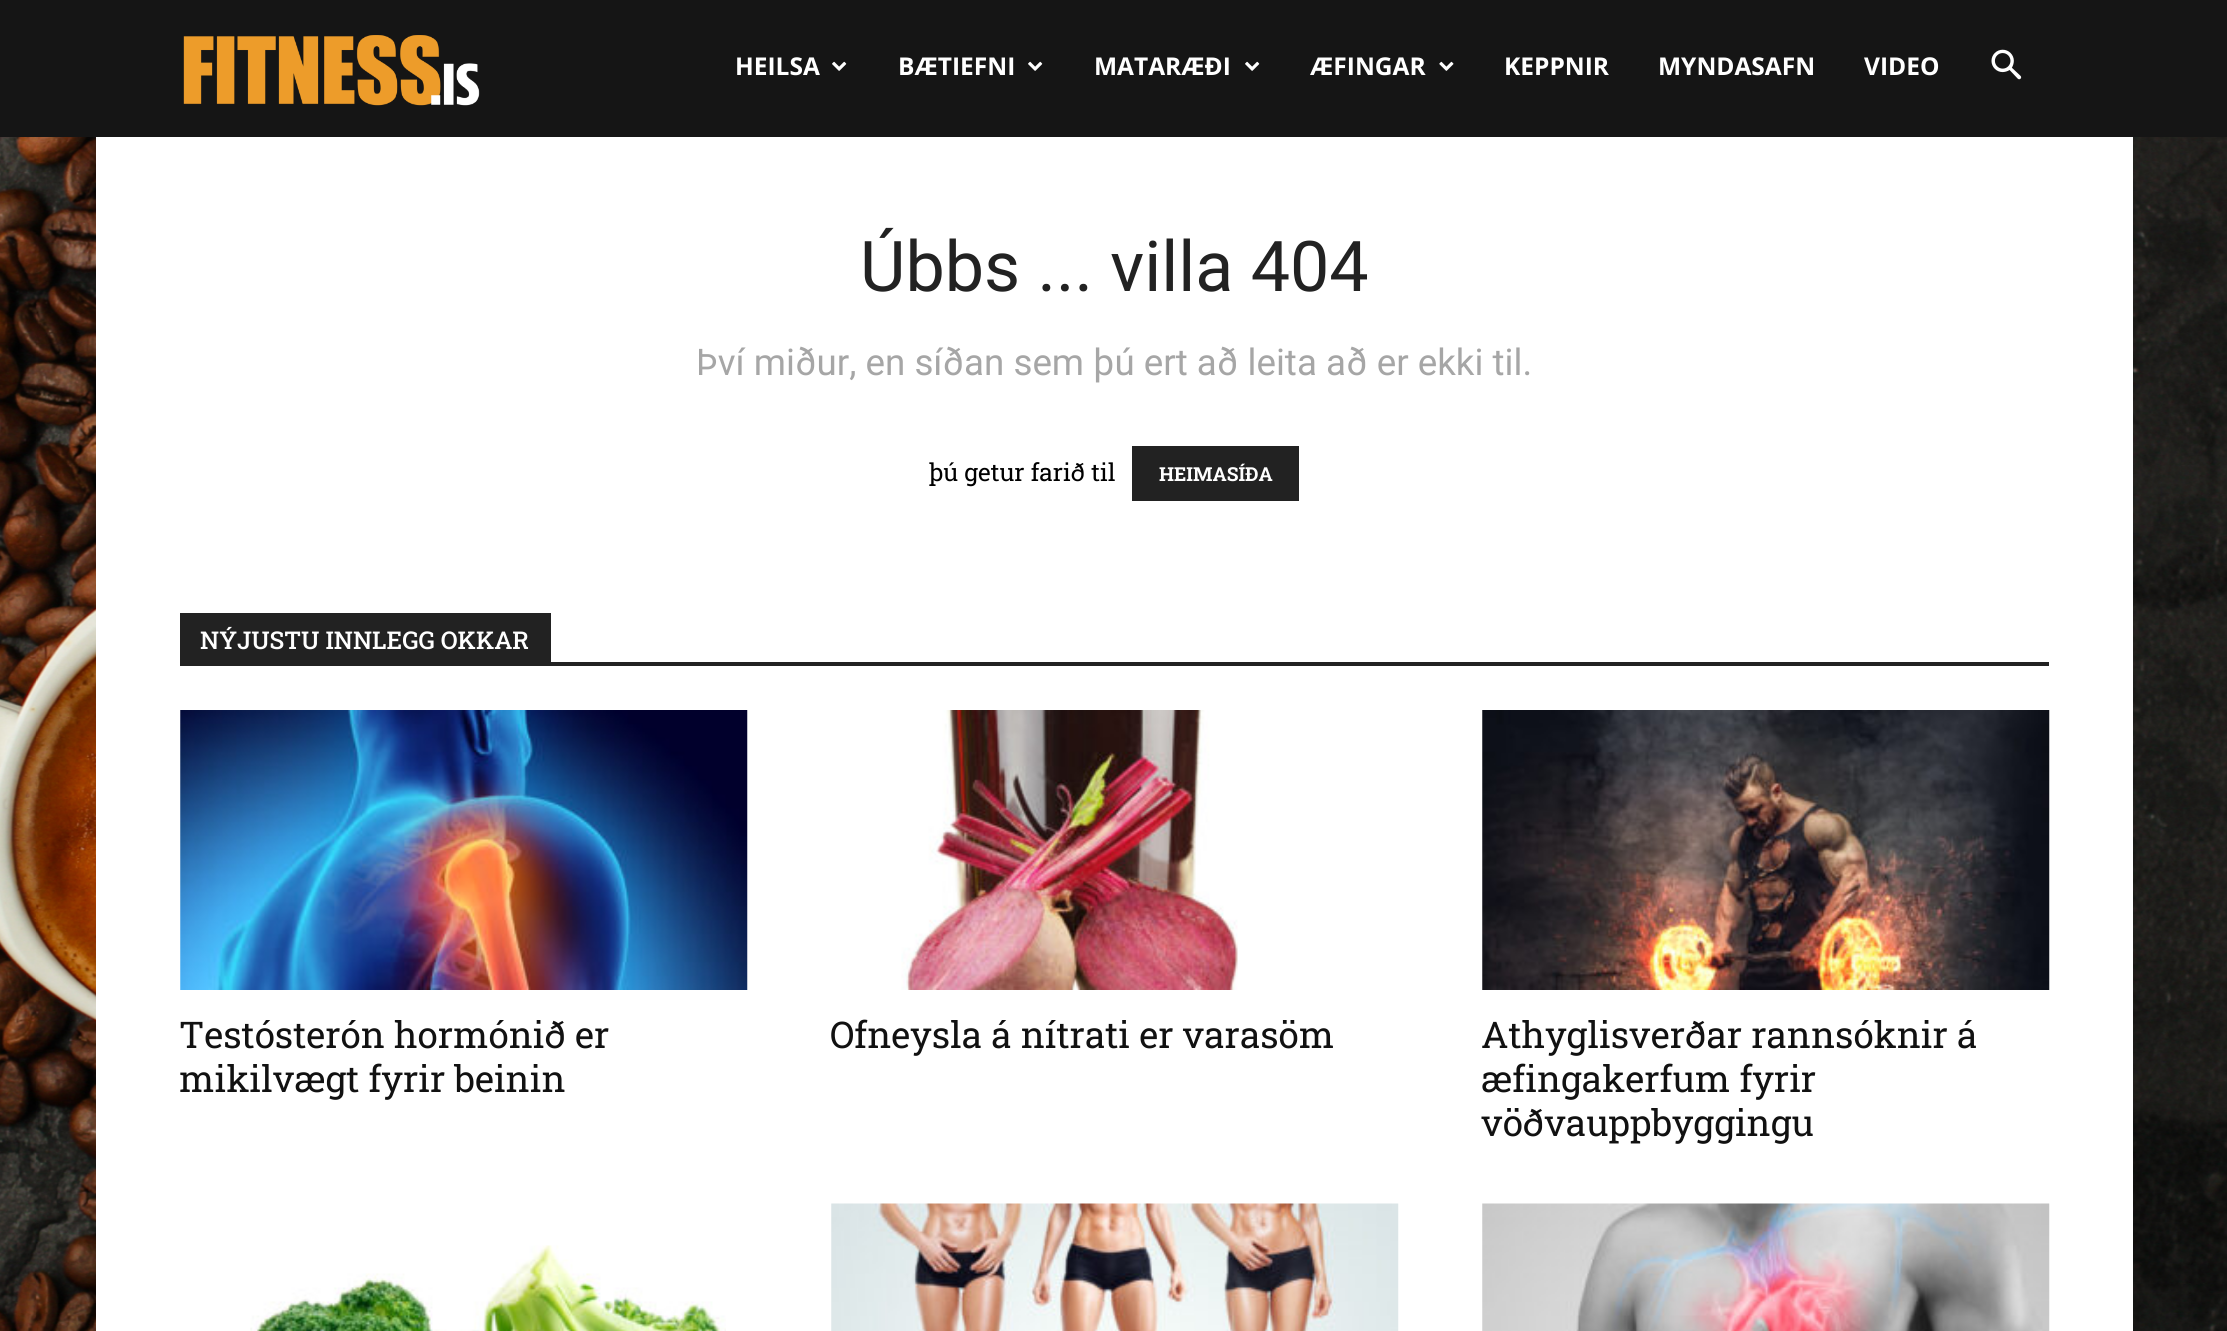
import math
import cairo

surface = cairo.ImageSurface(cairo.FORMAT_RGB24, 2227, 1331)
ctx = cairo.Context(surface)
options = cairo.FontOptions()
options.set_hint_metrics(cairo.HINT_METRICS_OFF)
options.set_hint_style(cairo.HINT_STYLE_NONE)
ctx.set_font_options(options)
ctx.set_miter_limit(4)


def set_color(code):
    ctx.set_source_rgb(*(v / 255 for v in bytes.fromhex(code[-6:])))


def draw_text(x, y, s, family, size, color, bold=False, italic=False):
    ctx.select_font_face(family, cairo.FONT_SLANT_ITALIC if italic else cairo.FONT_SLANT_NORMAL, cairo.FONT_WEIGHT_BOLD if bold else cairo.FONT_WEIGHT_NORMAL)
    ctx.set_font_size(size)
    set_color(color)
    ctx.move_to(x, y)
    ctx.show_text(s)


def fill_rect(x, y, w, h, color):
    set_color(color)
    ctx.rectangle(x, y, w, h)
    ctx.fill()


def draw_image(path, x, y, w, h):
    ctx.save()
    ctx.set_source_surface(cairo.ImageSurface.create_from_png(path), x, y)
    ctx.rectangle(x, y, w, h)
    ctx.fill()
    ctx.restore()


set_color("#ffffff")
ctx.paint()
fill_rect(0, 0, 2227, 137, "#151515")
draw_image("assets/img1.png", 183, 35, 297, 71)
draw_text(735, 75, "HEILSA", "Open Sans", 24.5, "#ffffff", bold=True)
draw_image("assets/img2.png", 832, 61, 15, 10)
draw_text(898, 75, "BÆTIEFNI", "Open Sans", 24.5, "#ffffff", bold=True)
draw_image("assets/img2.png", 1028, 61, 15, 10)
draw_text(1094, 75, "MATARÆÐI", "Open Sans", 24.5, "#ffffff", bold=True)
draw_image("assets/img2.png", 1245, 61, 15, 10)
draw_text(1310, 75, "ÆFINGAR", "Open Sans", 24.5, "#ffffff", bold=True)
draw_image("assets/img3.png", 1439, 61, 15, 10)
draw_text(1504, 75, "KEPPNIR", "Open Sans", 24.5, "#ffffff", bold=True)
draw_text(1658, 75, "MYNDASAFN", "Open Sans", 24.5, "#ffffff", bold=True)
draw_text(1864, 75, "VIDEO", "Open Sans", 24.5, "#ffffff", bold=True)
draw_image("assets/img4.png", 1991, 49, 31, 31)
draw_image("assets/img11.png", 0, 137, 2227, 1194)
fill_rect(96, 137, 2037, 1194, "#ffffff")
draw_text(860, 291, "Úbbs ... villa 404", "Roboto", 70, "#222222")
draw_text(696, 375, "Því miður, en síðan sem þú ert að leita að er ekki til.", "Roboto", 36.75, "#a6a6a6")
draw_text(929, 481, "þú getur farið til", "Roboto Slab", 24.5, "#000000")
fill_rect(1132, 446, 167, 55, "#222222")
draw_text(1159, 481, "HEIMASÍÐA", "Roboto Slab", 19.25, "#ffffff", bold=True)
fill_rect(180, 662, 1869, 4, "#222222")
fill_rect(180, 613, 371, 49, "#222222")
draw_text(200, 649, "NÝJUSTU INNLEGG OKKAR", "Roboto Slab Medium", 24.5, "#ffffff")
draw_image("assets/img5.png", 180, 710, 568, 280)
draw_text(179, 1048, "Testósterón hormónið er", "Roboto Slab", 36.75, "#111111")
draw_text(179, 1092, "mikilvægt fyrir beinin", "Roboto Slab", 36.75, "#111111")
draw_image("assets/img6.png", 901, 710, 337, 280)
draw_text(830, 1048, "Ofneysla á nítrati er varasöm", "Roboto Slab", 36.75, "#111111")
draw_image("assets/img7.png", 1482, 710, 568, 280)
draw_text(1481, 1048, "Athyglisverðar rannsóknir á", "Roboto Slab", 36.75, "#111111")
draw_text(1481, 1092, "æfingakerfum fyrir", "Roboto Slab", 36.75, "#111111")
draw_text(1481, 1136, "vöðvauppbyggingu", "Roboto Slab", 36.75, "#111111")
draw_image("assets/img8.png", 250, 1245, 476, 86)
draw_image("assets/img9.png", 831, 1203, 568, 128)
draw_image("assets/img10.png", 1482, 1203, 568, 128)
surface.write_to_png("output.png")
